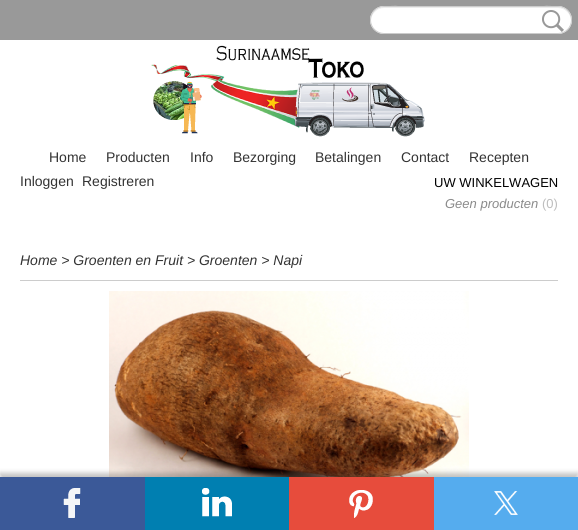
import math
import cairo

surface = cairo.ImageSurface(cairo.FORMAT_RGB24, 578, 530)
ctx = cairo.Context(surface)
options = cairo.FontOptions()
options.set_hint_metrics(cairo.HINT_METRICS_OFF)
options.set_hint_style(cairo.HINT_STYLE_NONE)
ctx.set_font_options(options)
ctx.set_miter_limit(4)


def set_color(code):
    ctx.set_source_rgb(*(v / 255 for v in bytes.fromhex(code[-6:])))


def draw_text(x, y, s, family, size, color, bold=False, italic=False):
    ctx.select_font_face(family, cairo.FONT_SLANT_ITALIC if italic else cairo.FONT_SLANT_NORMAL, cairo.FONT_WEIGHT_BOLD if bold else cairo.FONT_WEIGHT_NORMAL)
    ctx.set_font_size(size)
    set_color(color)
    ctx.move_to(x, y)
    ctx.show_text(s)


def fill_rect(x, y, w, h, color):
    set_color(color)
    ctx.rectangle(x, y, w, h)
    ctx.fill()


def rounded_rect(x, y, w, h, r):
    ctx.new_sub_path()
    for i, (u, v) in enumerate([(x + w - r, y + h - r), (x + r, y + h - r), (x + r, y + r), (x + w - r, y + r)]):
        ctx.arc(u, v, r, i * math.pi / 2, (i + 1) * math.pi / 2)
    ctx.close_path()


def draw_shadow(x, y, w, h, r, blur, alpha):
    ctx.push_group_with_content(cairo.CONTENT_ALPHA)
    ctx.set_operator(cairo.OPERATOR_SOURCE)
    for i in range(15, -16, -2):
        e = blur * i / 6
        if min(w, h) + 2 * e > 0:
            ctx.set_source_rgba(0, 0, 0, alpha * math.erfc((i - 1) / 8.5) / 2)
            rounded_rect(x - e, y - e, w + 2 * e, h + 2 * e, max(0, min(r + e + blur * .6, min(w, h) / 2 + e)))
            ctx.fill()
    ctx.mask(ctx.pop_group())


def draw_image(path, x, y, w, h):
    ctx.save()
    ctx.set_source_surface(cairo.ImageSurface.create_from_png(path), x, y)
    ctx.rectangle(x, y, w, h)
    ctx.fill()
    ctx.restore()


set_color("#ffffff")
ctx.paint()
fill_rect(0, 0, 578, 40, "#999999")
set_color("#ffffff")
rounded_rect(370, 6, 202, 28, 14)
ctx.fill()
set_color("#ececec")
ctx.new_path()
ctx.move_to(384, 8)
ctx.line_to(558, 8)
ctx.curve_to(565, 8, 571, 14, 571, 21)
ctx.curve_to(572, 0, 537, 7, 529, 7)
ctx.line_to(413, 7)
ctx.curve_to(405, 7, 370, 0, 371, 21)
ctx.curve_to(371, 14, 377, 8, 384, 8)
ctx.close_path()
ctx.fill()
rounded_rect(370.5, 6.5, 201, 27, 13.5)
set_color("#cccccc")
ctx.set_line_width(1)
ctx.stroke()
draw_image("assets/img1.png", 542, 10, 22, 22)
draw_image("assets/img2.png", 151, 45, 274, 92)
draw_text(49, 162, "Home", "Liberation Sans", 14, "#333333")
draw_text(106, 162, "Producten", "Liberation Sans", 14, "#333333")
draw_text(190, 162, "Info", "Liberation Sans", 14, "#333333")
draw_text(233, 162, "Bezorging", "Liberation Sans", 14, "#333333")
draw_text(315, 162, "Betalingen", "Liberation Sans", 14, "#333333")
draw_text(401, 162, "Contact", "Liberation Sans", 14, "#333333")
draw_text(469, 162, "Recepten", "Liberation Sans", 14, "#333333")
draw_text(20, 186, "Inloggen", "Liberation Sans", 14, "#333333")
draw_text(82, 186, "Registreren", "Liberation Sans", 14, "#333333")
draw_text(434, 187, "UW WINKELWAGEN", "Liberation Sans", 13, "#000000")
draw_text(445, 208, "Geen producten", "Liberation Sans", 13, "#8a8a8a", italic=True)
draw_text(542, 208, "(0)", "Liberation Sans", 13, "#bdbdbd")
fill_rect(20, 280, 538, 1, "#cccccc")
draw_text(20, 265, "Home > Groenten en Fruit > Groenten > Napi", "Liberation Sans", 14, "#333333", italic=True)
draw_image("assets/img3.png", 109, 291, 360, 186)
set_color("#323232")
draw_shadow(0, 473, 578, 53, 0, 2.5, 0.3)
fill_rect(0, 477, 145, 53, "#3b5998")
draw_image("assets/img4.png", 63, 488, 18, 30)
fill_rect(145, 477, 144, 53, "#007fb1")
draw_image("assets/img5.png", 202, 488, 30, 29)
fill_rect(289, 477, 145, 53, "#e74c3c")
draw_image("assets/img6.png", 349, 490, 24, 28)
fill_rect(434, 477, 144, 53, "#55acee")
draw_image("assets/img7.png", 494, 491, 24, 24)
surface.write_to_png("output.png")
